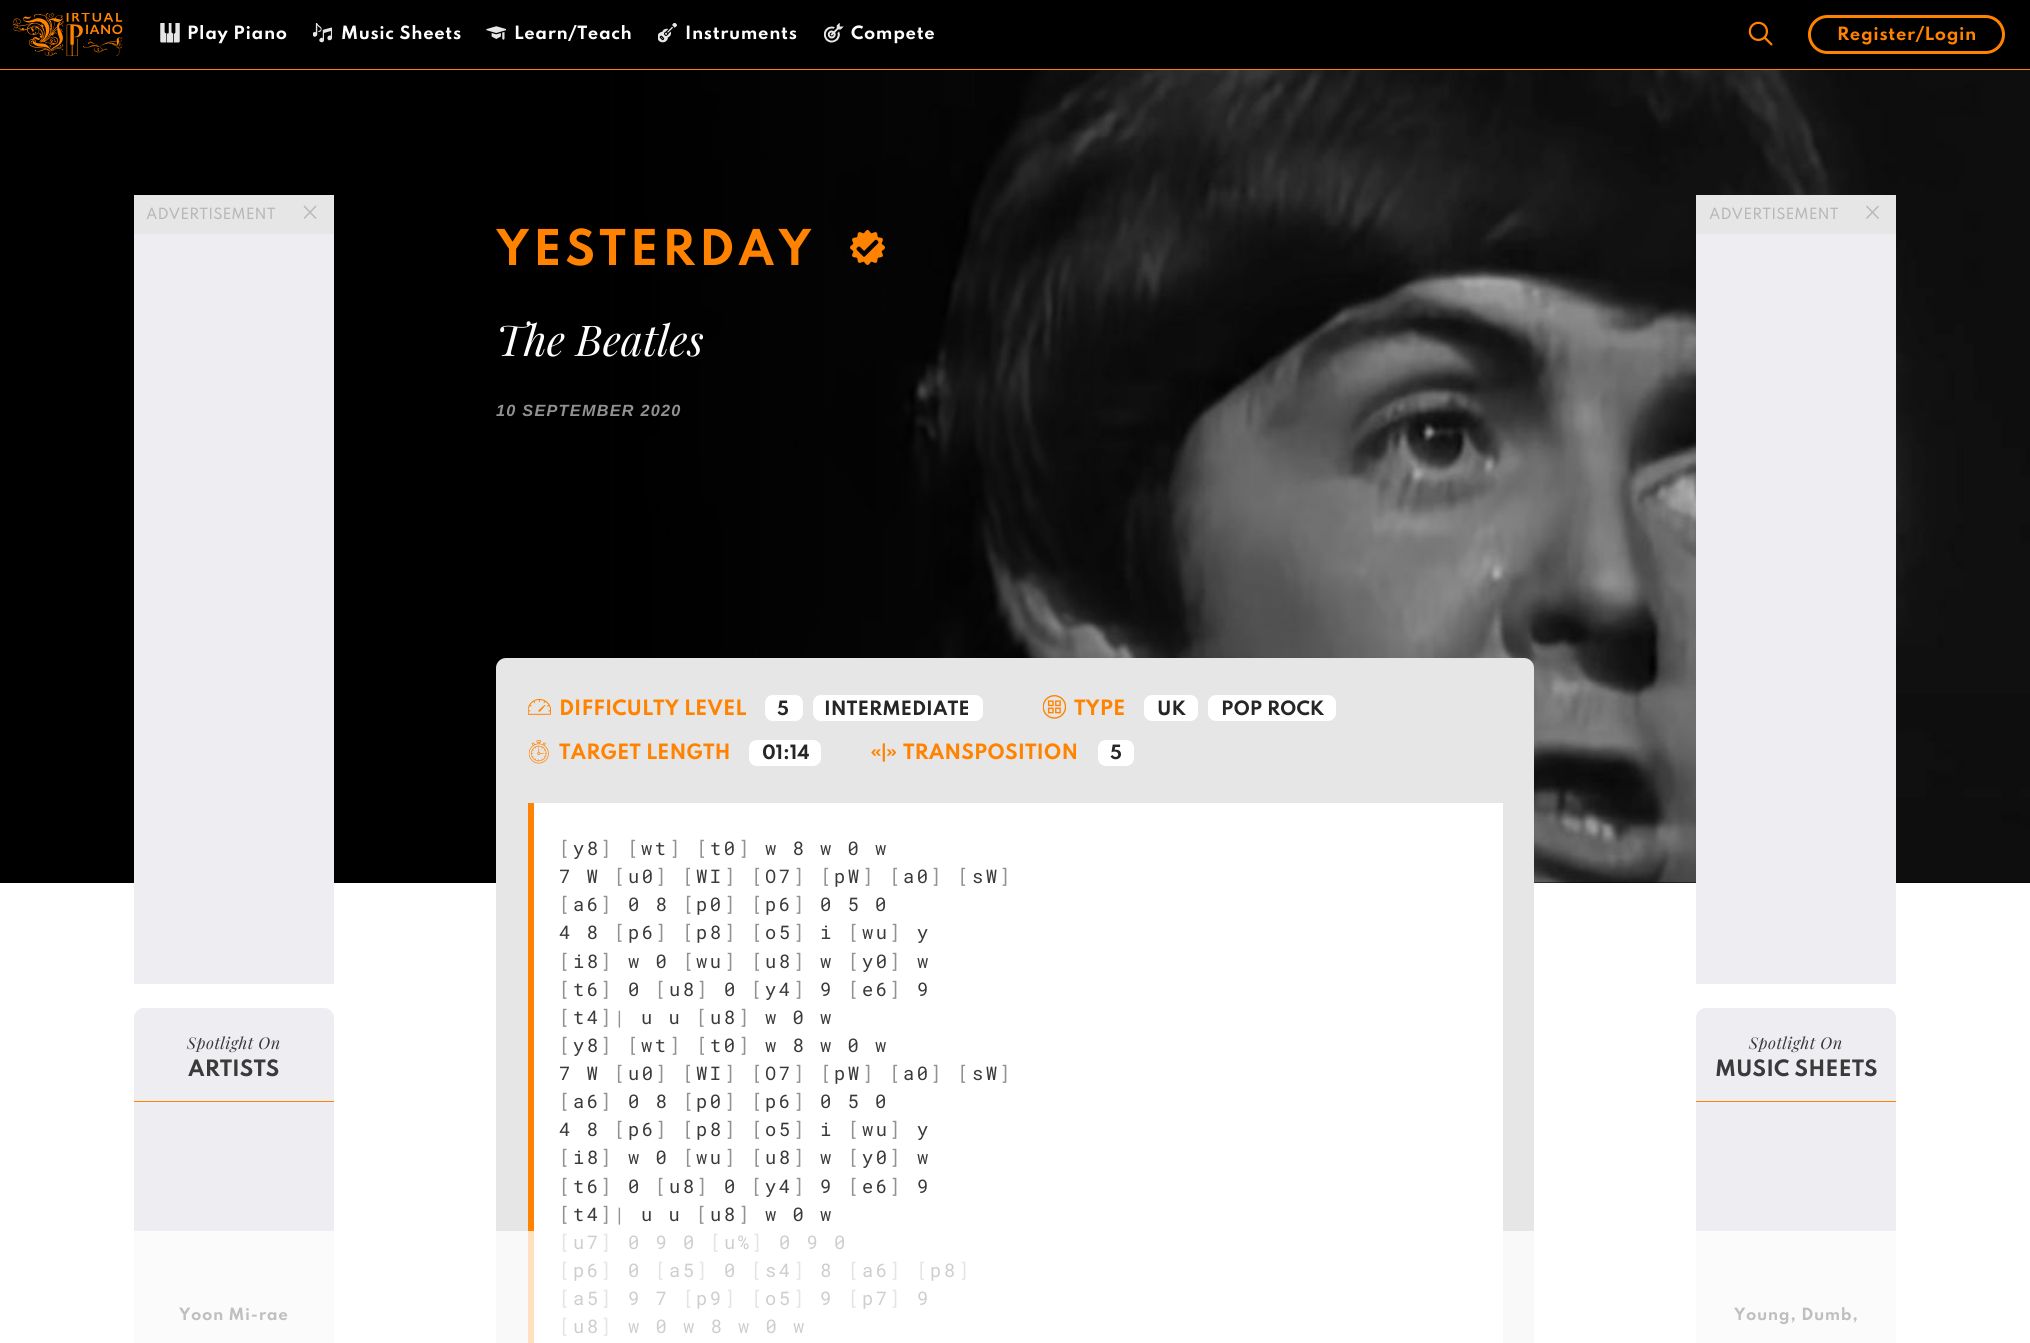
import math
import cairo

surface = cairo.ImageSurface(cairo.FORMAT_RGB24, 2030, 1343)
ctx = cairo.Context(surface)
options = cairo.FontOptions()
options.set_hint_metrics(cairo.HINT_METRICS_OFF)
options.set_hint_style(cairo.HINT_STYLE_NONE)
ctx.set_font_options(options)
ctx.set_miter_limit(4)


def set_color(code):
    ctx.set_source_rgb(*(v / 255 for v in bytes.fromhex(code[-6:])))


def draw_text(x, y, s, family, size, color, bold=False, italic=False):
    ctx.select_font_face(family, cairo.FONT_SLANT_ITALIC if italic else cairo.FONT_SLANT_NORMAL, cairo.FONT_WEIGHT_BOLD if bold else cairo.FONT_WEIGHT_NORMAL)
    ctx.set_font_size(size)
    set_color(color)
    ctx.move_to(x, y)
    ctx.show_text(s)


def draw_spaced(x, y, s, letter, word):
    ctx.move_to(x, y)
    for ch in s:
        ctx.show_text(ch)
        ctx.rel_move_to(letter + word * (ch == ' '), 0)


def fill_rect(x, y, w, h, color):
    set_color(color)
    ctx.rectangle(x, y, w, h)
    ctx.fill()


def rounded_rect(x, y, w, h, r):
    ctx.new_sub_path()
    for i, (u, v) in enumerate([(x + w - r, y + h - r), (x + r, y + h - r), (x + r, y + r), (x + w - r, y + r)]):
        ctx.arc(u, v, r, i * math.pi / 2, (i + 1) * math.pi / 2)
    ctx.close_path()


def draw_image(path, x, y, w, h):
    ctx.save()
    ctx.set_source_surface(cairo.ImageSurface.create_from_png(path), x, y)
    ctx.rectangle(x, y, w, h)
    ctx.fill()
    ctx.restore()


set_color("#ffffff")
ctx.paint()
fill_rect(0, 0, 2030, 69, "#000000")
fill_rect(0, 69, 2030, 1, "#ff8300")
draw_image("assets/img1.png", 13, 13, 110, 43)
draw_image("assets/img2.png", 160, 23, 20, 20)
ctx.select_font_face("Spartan", cairo.FONT_SLANT_NORMAL, cairo.FONT_WEIGHT_BOLD)
ctx.set_font_size(16.25)
set_color("#ffffff")
draw_spaced(187, 39, "Play Piano", 0.6, 0)
draw_image("assets/img3.png", 313, 23, 19, 20)
draw_spaced(341, 39, "Music Sheets", 0.6, 0)
draw_image("assets/img4.png", 486, 26, 20, 14)
draw_spaced(514, 39, "Learn/Teach", 0.6, 0)
draw_image("assets/img5.png", 658, 23, 19, 20)
draw_spaced(685, 39, "Instruments", 0.6, 0)
draw_image("assets/img6.png", 824, 23, 20, 20)
draw_spaced(851, 39, "Compete", 0.6, 0)
draw_image("assets/img7.png", 1748, 21, 25, 25)
rounded_rect(1809.5, 16.5, 194, 36, 18)
set_color("#ff8300")
ctx.set_line_width(3)
ctx.stroke()
draw_spaced(1837, 40, "Register/Login", 0.6, 0)
fill_rect(1534, 882, 496, 1, "#000000")
draw_image("assets/img8.png", 613, 70, 1417, 813)
gradient = cairo.LinearGradient(0, 476, 2030, 476)
gradient.add_color_stop_rgba(0, 0, 0, 0, 1)
gradient.add_color_stop_rgba(0.3, 0, 0, 0, 1)
gradient.add_color_stop_rgba(0.6, 0, 0, 0, 0)
ctx.set_source(gradient)
ctx.rectangle(0, 70, 1205, 813)
ctx.fill()
fill_rect(134, 195, 200, 39, "#e6e6e6")
draw_text(146, 219, "ADVERTISEMENT", "Spartan Medium", 13.75, "#b7b7b7")
ctx.new_path()
ctx.move_to(304.5, 205.5)
ctx.line_to(316.5, 218)
ctx.line_to(315.5, 219)
ctx.line_to(303.5, 206.5)
ctx.close_path()
ctx.fill()
ctx.new_path()
ctx.move_to(303.5, 218)
ctx.line_to(315.5, 205.5)
ctx.line_to(316.5, 206.5)
ctx.line_to(304.5, 219)
ctx.close_path()
ctx.fill()
fill_rect(134, 234, 200, 750, "#ededf2")
rounded_rect(134, 1008, 200, 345, 10)
ctx.fill()
fill_rect(134, 1231, 200, 112, "#fbfbfc")
fill_rect(134, 1101, 200, 1, "#ff8300")
ctx.select_font_face("Playfair Display", cairo.FONT_SLANT_ITALIC)
ctx.set_font_size(16.25)
set_color("#3a3a3a")
draw_spaced(187, 1049, "Spotlight On", 0.5, 0)
draw_text(188, 1076, "ARTISTS", "Spartan", 20, "#3a3a3a", bold=True)
ctx.set_font_size(15)
set_color("#bfbfbf")
draw_spaced(179, 1320, "Yoon Mi-rae", 0.6, 0)
fill_rect(1696, 195, 200, 39, "#e6e6e6")
draw_text(1709, 219, "ADVERTISEMENT", "Spartan Medium", 13.75, "#b7b7b7")
ctx.new_path()
ctx.move_to(1867, 205.5)
ctx.line_to(1879, 218)
ctx.line_to(1878, 219)
ctx.line_to(1866, 206.5)
ctx.close_path()
ctx.fill()
ctx.new_path()
ctx.move_to(1866, 218)
ctx.line_to(1878, 205.5)
ctx.line_to(1879, 206.5)
ctx.line_to(1867, 219)
ctx.close_path()
ctx.fill()
fill_rect(1696, 234, 200, 750, "#ededf2")
rounded_rect(1696, 1008, 200, 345, 10)
ctx.fill()
fill_rect(1696, 1231, 200, 112, "#fbfbfc")
fill_rect(1696, 1101, 200, 1, "#ff8300")
ctx.select_font_face("Playfair Display", cairo.FONT_SLANT_ITALIC)
ctx.set_font_size(16.25)
set_color("#3a3a3a")
draw_spaced(1749, 1049, "Spotlight On", 0.5, 0)
draw_text(1715, 1076, "MUSIC SHEETS", "Spartan", 20, "#3a3a3a", bold=True)
ctx.set_font_size(15)
set_color("#bfbfbf")
draw_spaced(1734, 1320, "Young, Dumb,", 0.6, 0)
ctx.set_font_size(43.75)
set_color("#ff8300")
draw_spaced(496, 265, "YESTERDAY", 3.75, 0)
draw_image("assets/img9.png", 850, 230, 35, 35)
draw_text(496, 356, "The Beatles", "Playfair Display", 42.5, "#ffffff", italic=True)
ctx.select_font_face("Liberation Sans", cairo.FONT_SLANT_ITALIC, cairo.FONT_WEIGHT_BOLD)
ctx.set_font_size(16.25)
set_color("#919191")
draw_spaced(496, 416, "10 SEPTEMBER 2020", 1.25, 0)
set_color("#e6e6e6")
rounded_rect(496, 658, 1038, 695, 10)
ctx.fill()
fill_rect(496, 1231, 1038, 112, "#f9f9f9")
draw_image("assets/img10.png", 528, 699, 23, 16)
draw_text(559, 715, "DIFFICULTY LEVEL", "Spartan", 18.75, "#ff8300", bold=True)
set_color("#ffffff")
rounded_rect(765, 695, 38, 26, 8)
ctx.fill()
draw_text(777, 715, "5", "Spartan", 17.5, "#262626", bold=True)
set_color("#ffffff")
rounded_rect(813, 695, 170, 26, 8)
ctx.fill()
draw_text(824, 715, "INTERMEDIATE", "Spartan", 17.5, "#262626", bold=True)
draw_image("assets/img11.png", 1043, 695, 23, 24)
draw_text(1074, 715, "TYPE", "Spartan", 18.75, "#ff8300", bold=True)
set_color("#ffffff")
rounded_rect(1144, 695, 54, 26, 8)
ctx.fill()
draw_text(1157, 715, "UK", "Spartan", 17.5, "#262626", bold=True)
set_color("#ffffff")
rounded_rect(1208, 695, 128, 26, 8)
ctx.fill()
draw_text(1221, 715, "POP ROCK", "Spartan", 17.5, "#262626", bold=True)
draw_image("assets/img12.png", 529, 740, 20, 24)
draw_text(559, 759, "TARGET LENGTH", "Spartan", 18.75, "#ff8300", bold=True)
set_color("#ffffff")
rounded_rect(749, 740, 72, 26, 8)
ctx.fill()
draw_text(762, 759, "01:14", "Spartan", 17.5, "#262626", bold=True)
draw_image("assets/img13.png", 871, 743, 25, 19)
draw_text(903, 759, "TRANSPOSITION", "Spartan", 18.75, "#ff8300", bold=True)
set_color("#ffffff")
rounded_rect(1098, 740, 36, 26, 8)
ctx.fill()
draw_text(1110, 759, "5", "Spartan", 17.5, "#262626", bold=True)
fill_rect(534, 803, 969, 540, "#ffffff")
fill_rect(528, 803, 6, 428, "#ff8300")
fill_rect(528, 1231, 6, 112, "#ffe0bf")
ctx.select_font_face("Roboto Mono")
ctx.set_font_size(18.75)
set_color("#919191")
draw_spaced(559, 855, "[", 2.5, 0)
set_color("#3a3a3a")
draw_spaced(573, 855, "y8", 2.5, 0)
set_color("#919191")
draw_spaced(600, 855, "] [", 2.5, 0)
set_color("#3a3a3a")
draw_spaced(641, 855, "wt", 2.5, 0)
set_color("#919191")
draw_spaced(669, 855, "] [", 2.5, 0)
set_color("#3a3a3a")
draw_spaced(710, 855, "t0", 2.5, 0)
set_color("#919191")
draw_spaced(738, 855, "]", 2.5, 0)
set_color("#3a3a3a")
draw_spaced(765, 855, "w 8 w 0 w", 2.5, 0)
draw_spaced(559, 883, "7 W", 2.5, 0)
set_color("#919191")
draw_spaced(614, 883, "[", 2.5, 0)
set_color("#3a3a3a")
draw_spaced(628, 883, "u0", 2.5, 0)
set_color("#919191")
draw_spaced(655, 883, "] [", 2.5, 0)
set_color("#3a3a3a")
draw_spaced(696, 883, "WI", 2.5, 0)
set_color("#919191")
draw_spaced(724, 883, "] [", 2.5, 0)
set_color("#3a3a3a")
draw_spaced(765, 883, "O7", 2.5, 0)
set_color("#919191")
draw_spaced(793, 883, "] [", 2.5, 0)
set_color("#3a3a3a")
draw_spaced(834, 883, "pW", 2.5, 0)
set_color("#919191")
draw_spaced(862, 883, "] [", 2.5, 0)
set_color("#3a3a3a")
draw_spaced(903, 883, "a0", 2.5, 0)
set_color("#919191")
draw_spaced(930, 883, "] [", 2.5, 0)
set_color("#3a3a3a")
draw_spaced(972, 883, "sW", 2.5, 0)
set_color("#919191")
draw_spaced(999, 883, "]", 2.5, 0)
draw_spaced(559, 911, "[", 2.5, 0)
set_color("#3a3a3a")
draw_spaced(573, 911, "a6", 2.5, 0)
set_color("#919191")
draw_spaced(600, 911, "]", 2.5, 0)
set_color("#3a3a3a")
draw_spaced(628, 911, "0 8", 2.5, 0)
set_color("#919191")
draw_spaced(683, 911, "[", 2.5, 0)
set_color("#3a3a3a")
draw_spaced(696, 911, "p0", 2.5, 0)
set_color("#919191")
draw_spaced(724, 911, "] [", 2.5, 0)
set_color("#3a3a3a")
draw_spaced(765, 911, "p6", 2.5, 0)
set_color("#919191")
draw_spaced(793, 911, "]", 2.5, 0)
set_color("#3a3a3a")
draw_spaced(820, 911, "0 5 0", 2.5, 0)
draw_spaced(559, 939, "4 8", 2.5, 0)
set_color("#919191")
draw_spaced(614, 939, "[", 2.5, 0)
set_color("#3a3a3a")
draw_spaced(628, 939, "p6", 2.5, 0)
set_color("#919191")
draw_spaced(655, 939, "] [", 2.5, 0)
set_color("#3a3a3a")
draw_spaced(696, 939, "p8", 2.5, 0)
set_color("#919191")
draw_spaced(724, 939, "] [", 2.5, 0)
set_color("#3a3a3a")
draw_spaced(765, 939, "o5", 2.5, 0)
set_color("#919191")
draw_spaced(793, 939, "]", 2.5, 0)
set_color("#3a3a3a")
draw_spaced(820, 939, "i", 2.5, 0)
set_color("#919191")
draw_spaced(848, 939, "[", 2.5, 0)
set_color("#3a3a3a")
draw_spaced(862, 939, "wu", 2.5, 0)
set_color("#919191")
draw_spaced(889, 939, "]", 2.5, 0)
set_color("#3a3a3a")
draw_spaced(917, 939, "y", 2.5, 0)
set_color("#919191")
draw_spaced(559, 968, "[", 2.5, 0)
set_color("#3a3a3a")
draw_spaced(573, 968, "i8", 2.5, 0)
set_color("#919191")
draw_spaced(600, 968, "]", 2.5, 0)
set_color("#3a3a3a")
draw_spaced(628, 968, "w 0", 2.5, 0)
set_color("#919191")
draw_spaced(683, 968, "[", 2.5, 0)
set_color("#3a3a3a")
draw_spaced(696, 968, "wu", 2.5, 0)
set_color("#919191")
draw_spaced(724, 968, "] [", 2.5, 0)
set_color("#3a3a3a")
draw_spaced(765, 968, "u8", 2.5, 0)
set_color("#919191")
draw_spaced(793, 968, "]", 2.5, 0)
set_color("#3a3a3a")
draw_spaced(820, 968, "w", 2.5, 0)
set_color("#919191")
draw_spaced(848, 968, "[", 2.5, 0)
set_color("#3a3a3a")
draw_spaced(862, 968, "y0", 2.5, 0)
set_color("#919191")
draw_spaced(889, 968, "]", 2.5, 0)
set_color("#3a3a3a")
draw_spaced(917, 968, "w", 2.5, 0)
set_color("#919191")
draw_spaced(559, 996, "[", 2.5, 0)
set_color("#3a3a3a")
draw_spaced(573, 996, "t6", 2.5, 0)
set_color("#919191")
draw_spaced(600, 996, "]", 2.5, 0)
set_color("#3a3a3a")
draw_spaced(628, 996, "0", 2.5, 0)
set_color("#919191")
draw_spaced(655, 996, "[", 2.5, 0)
set_color("#3a3a3a")
draw_spaced(669, 996, "u8", 2.5, 0)
set_color("#919191")
draw_spaced(696, 996, "]", 2.5, 0)
set_color("#3a3a3a")
draw_spaced(724, 996, "0", 2.5, 0)
set_color("#919191")
draw_spaced(751, 996, "[", 2.5, 0)
set_color("#3a3a3a")
draw_spaced(765, 996, "y4", 2.5, 0)
set_color("#919191")
draw_spaced(793, 996, "]", 2.5, 0)
set_color("#3a3a3a")
draw_spaced(820, 996, "9", 2.5, 0)
set_color("#919191")
draw_spaced(848, 996, "[", 2.5, 0)
set_color("#3a3a3a")
draw_spaced(862, 996, "e6", 2.5, 0)
set_color("#919191")
draw_spaced(889, 996, "]", 2.5, 0)
set_color("#3a3a3a")
draw_spaced(917, 996, "9", 2.5, 0)
set_color("#919191")
draw_spaced(559, 1024, "[", 2.5, 0)
set_color("#3a3a3a")
draw_spaced(573, 1024, "t4", 2.5, 0)
set_color("#919191")
draw_spaced(600, 1024, "]|", 2.5, 0)
set_color("#3a3a3a")
draw_spaced(641, 1024, "u u", 2.5, 0)
set_color("#919191")
draw_spaced(696, 1024, "[", 2.5, 0)
set_color("#3a3a3a")
draw_spaced(710, 1024, "u8", 2.5, 0)
set_color("#919191")
draw_spaced(738, 1024, "]", 2.5, 0)
set_color("#3a3a3a")
draw_spaced(765, 1024, "w 0 w", 2.5, 0)
set_color("#919191")
draw_spaced(559, 1052, "[", 2.5, 0)
set_color("#3a3a3a")
draw_spaced(573, 1052, "y8", 2.5, 0)
set_color("#919191")
draw_spaced(600, 1052, "] [", 2.5, 0)
set_color("#3a3a3a")
draw_spaced(641, 1052, "wt", 2.5, 0)
set_color("#919191")
draw_spaced(669, 1052, "] [", 2.5, 0)
set_color("#3a3a3a")
draw_spaced(710, 1052, "t0", 2.5, 0)
set_color("#919191")
draw_spaced(738, 1052, "]", 2.5, 0)
set_color("#3a3a3a")
draw_spaced(765, 1052, "w 8 w 0 w", 2.5, 0)
draw_spaced(559, 1080, "7 W", 2.5, 0)
set_color("#919191")
draw_spaced(614, 1080, "[", 2.5, 0)
set_color("#3a3a3a")
draw_spaced(628, 1080, "u0", 2.5, 0)
set_color("#919191")
draw_spaced(655, 1080, "] [", 2.5, 0)
set_color("#3a3a3a")
draw_spaced(696, 1080, "WI", 2.5, 0)
set_color("#919191")
draw_spaced(724, 1080, "] [", 2.5, 0)
set_color("#3a3a3a")
draw_spaced(765, 1080, "O7", 2.5, 0)
set_color("#919191")
draw_spaced(793, 1080, "] [", 2.5, 0)
set_color("#3a3a3a")
draw_spaced(834, 1080, "pW", 2.5, 0)
set_color("#919191")
draw_spaced(862, 1080, "] [", 2.5, 0)
set_color("#3a3a3a")
draw_spaced(903, 1080, "a0", 2.5, 0)
set_color("#919191")
draw_spaced(930, 1080, "] [", 2.5, 0)
set_color("#3a3a3a")
draw_spaced(972, 1080, "sW", 2.5, 0)
set_color("#919191")
draw_spaced(999, 1080, "]", 2.5, 0)
draw_spaced(559, 1108, "[", 2.5, 0)
set_color("#3a3a3a")
draw_spaced(573, 1108, "a6", 2.5, 0)
set_color("#919191")
draw_spaced(600, 1108, "]", 2.5, 0)
set_color("#3a3a3a")
draw_spaced(628, 1108, "0 8", 2.5, 0)
set_color("#919191")
draw_spaced(683, 1108, "[", 2.5, 0)
set_color("#3a3a3a")
draw_spaced(696, 1108, "p0", 2.5, 0)
set_color("#919191")
draw_spaced(724, 1108, "] [", 2.5, 0)
set_color("#3a3a3a")
draw_spaced(765, 1108, "p6", 2.5, 0)
set_color("#919191")
draw_spaced(793, 1108, "]", 2.5, 0)
set_color("#3a3a3a")
draw_spaced(820, 1108, "0 5 0", 2.5, 0)
draw_spaced(559, 1136, "4 8", 2.5, 0)
set_color("#919191")
draw_spaced(614, 1136, "[", 2.5, 0)
set_color("#3a3a3a")
draw_spaced(628, 1136, "p6", 2.5, 0)
set_color("#919191")
draw_spaced(655, 1136, "] [", 2.5, 0)
set_color("#3a3a3a")
draw_spaced(696, 1136, "p8", 2.5, 0)
set_color("#919191")
draw_spaced(724, 1136, "] [", 2.5, 0)
set_color("#3a3a3a")
draw_spaced(765, 1136, "o5", 2.5, 0)
set_color("#919191")
draw_spaced(793, 1136, "]", 2.5, 0)
set_color("#3a3a3a")
draw_spaced(820, 1136, "i", 2.5, 0)
set_color("#919191")
draw_spaced(848, 1136, "[", 2.5, 0)
set_color("#3a3a3a")
draw_spaced(862, 1136, "wu", 2.5, 0)
set_color("#919191")
draw_spaced(889, 1136, "]", 2.5, 0)
set_color("#3a3a3a")
draw_spaced(917, 1136, "y", 2.5, 0)
set_color("#919191")
draw_spaced(559, 1164, "[", 2.5, 0)
set_color("#3a3a3a")
draw_spaced(573, 1164, "i8", 2.5, 0)
set_color("#919191")
draw_spaced(600, 1164, "]", 2.5, 0)
set_color("#3a3a3a")
draw_spaced(628, 1164, "w 0", 2.5, 0)
set_color("#919191")
draw_spaced(683, 1164, "[", 2.5, 0)
set_color("#3a3a3a")
draw_spaced(696, 1164, "wu", 2.5, 0)
set_color("#919191")
draw_spaced(724, 1164, "] [", 2.5, 0)
set_color("#3a3a3a")
draw_spaced(765, 1164, "u8", 2.5, 0)
set_color("#919191")
draw_spaced(793, 1164, "]", 2.5, 0)
set_color("#3a3a3a")
draw_spaced(820, 1164, "w", 2.5, 0)
set_color("#919191")
draw_spaced(848, 1164, "[", 2.5, 0)
set_color("#3a3a3a")
draw_spaced(862, 1164, "y0", 2.5, 0)
set_color("#919191")
draw_spaced(889, 1164, "]", 2.5, 0)
set_color("#3a3a3a")
draw_spaced(917, 1164, "w", 2.5, 0)
set_color("#919191")
draw_spaced(559, 1193, "[", 2.5, 0)
set_color("#3a3a3a")
draw_spaced(573, 1193, "t6", 2.5, 0)
set_color("#919191")
draw_spaced(600, 1193, "]", 2.5, 0)
set_color("#3a3a3a")
draw_spaced(628, 1193, "0", 2.5, 0)
set_color("#919191")
draw_spaced(655, 1193, "[", 2.5, 0)
set_color("#3a3a3a")
draw_spaced(669, 1193, "u8", 2.5, 0)
set_color("#919191")
draw_spaced(696, 1193, "]", 2.5, 0)
set_color("#3a3a3a")
draw_spaced(724, 1193, "0", 2.5, 0)
set_color("#919191")
draw_spaced(751, 1193, "[", 2.5, 0)
set_color("#3a3a3a")
draw_spaced(765, 1193, "y4", 2.5, 0)
set_color("#919191")
draw_spaced(793, 1193, "]", 2.5, 0)
set_color("#3a3a3a")
draw_spaced(820, 1193, "9", 2.5, 0)
set_color("#919191")
draw_spaced(848, 1193, "[", 2.5, 0)
set_color("#3a3a3a")
draw_spaced(862, 1193, "e6", 2.5, 0)
set_color("#919191")
draw_spaced(889, 1193, "]", 2.5, 0)
set_color("#3a3a3a")
draw_spaced(917, 1193, "9", 2.5, 0)
set_color("#919191")
draw_spaced(559, 1221, "[", 2.5, 0)
set_color("#3a3a3a")
draw_spaced(573, 1221, "t4", 2.5, 0)
set_color("#919191")
draw_spaced(600, 1221, "]|", 2.5, 0)
set_color("#3a3a3a")
draw_spaced(641, 1221, "u u", 2.5, 0)
set_color("#919191")
draw_spaced(696, 1221, "[", 2.5, 0)
set_color("#3a3a3a")
draw_spaced(710, 1221, "u8", 2.5, 0)
set_color("#919191")
draw_spaced(738, 1221, "]", 2.5, 0)
set_color("#3a3a3a")
draw_spaced(765, 1221, "w 0 w", 2.5, 0)
set_color("#e4e4e4")
draw_spaced(559, 1249, "[", 2.5, 0)
set_color("#cecece")
draw_spaced(573, 1249, "u7", 2.5, 0)
set_color("#e4e4e4")
draw_spaced(600, 1249, "]", 2.5, 0)
set_color("#cecece")
draw_spaced(628, 1249, "0 9 0", 2.5, 0)
set_color("#e4e4e4")
draw_spaced(710, 1249, "[", 2.5, 0)
set_color("#cecece")
draw_spaced(724, 1249, "u%", 2.5, 0)
set_color("#e4e4e4")
draw_spaced(751, 1249, "]", 2.5, 0)
set_color("#cecece")
draw_spaced(779, 1249, "0 9 0", 2.5, 0)
set_color("#e4e4e4")
draw_spaced(559, 1277, "[", 2.5, 0)
set_color("#cecece")
draw_spaced(573, 1277, "p6", 2.5, 0)
set_color("#e4e4e4")
draw_spaced(600, 1277, "]", 2.5, 0)
set_color("#cecece")
draw_spaced(628, 1277, "0", 2.5, 0)
set_color("#e4e4e4")
draw_spaced(655, 1277, "[", 2.5, 0)
set_color("#cecece")
draw_spaced(669, 1277, "a5", 2.5, 0)
set_color("#e4e4e4")
draw_spaced(696, 1277, "]", 2.5, 0)
set_color("#cecece")
draw_spaced(724, 1277, "0", 2.5, 0)
set_color("#e4e4e4")
draw_spaced(751, 1277, "[", 2.5, 0)
set_color("#cecece")
draw_spaced(765, 1277, "s4", 2.5, 0)
set_color("#e4e4e4")
draw_spaced(793, 1277, "]", 2.5, 0)
set_color("#cecece")
draw_spaced(820, 1277, "8", 2.5, 0)
set_color("#e4e4e4")
draw_spaced(848, 1277, "[", 2.5, 0)
set_color("#cecece")
draw_spaced(862, 1277, "a6", 2.5, 0)
set_color("#e4e4e4")
draw_spaced(889, 1277, "] [", 2.5, 0)
set_color("#cecece")
draw_spaced(930, 1277, "p8", 2.5, 0)
set_color("#e4e4e4")
draw_spaced(958, 1277, "]", 2.5, 0)
draw_spaced(559, 1305, "[", 2.5, 0)
set_color("#cecece")
draw_spaced(573, 1305, "a5", 2.5, 0)
set_color("#e4e4e4")
draw_spaced(600, 1305, "]", 2.5, 0)
set_color("#cecece")
draw_spaced(628, 1305, "9 7", 2.5, 0)
set_color("#e4e4e4")
draw_spaced(683, 1305, "[", 2.5, 0)
set_color("#cecece")
draw_spaced(696, 1305, "p9", 2.5, 0)
set_color("#e4e4e4")
draw_spaced(724, 1305, "] [", 2.5, 0)
set_color("#cecece")
draw_spaced(765, 1305, "o5", 2.5, 0)
set_color("#e4e4e4")
draw_spaced(793, 1305, "]", 2.5, 0)
set_color("#cecece")
draw_spaced(820, 1305, "9", 2.5, 0)
set_color("#e4e4e4")
draw_spaced(848, 1305, "[", 2.5, 0)
set_color("#cecece")
draw_spaced(862, 1305, "p7", 2.5, 0)
set_color("#e4e4e4")
draw_spaced(889, 1305, "]", 2.5, 0)
set_color("#cecece")
draw_spaced(917, 1305, "9", 2.5, 0)
set_color("#e4e4e4")
draw_spaced(559, 1333, "[", 2.5, 0)
set_color("#cecece")
draw_spaced(573, 1333, "u8", 2.5, 0)
set_color("#e4e4e4")
draw_spaced(600, 1333, "]", 2.5, 0)
set_color("#cecece")
draw_spaced(628, 1333, "w 0 w 8 w 0 w", 2.5, 0)
surface.write_to_png("output.png")
